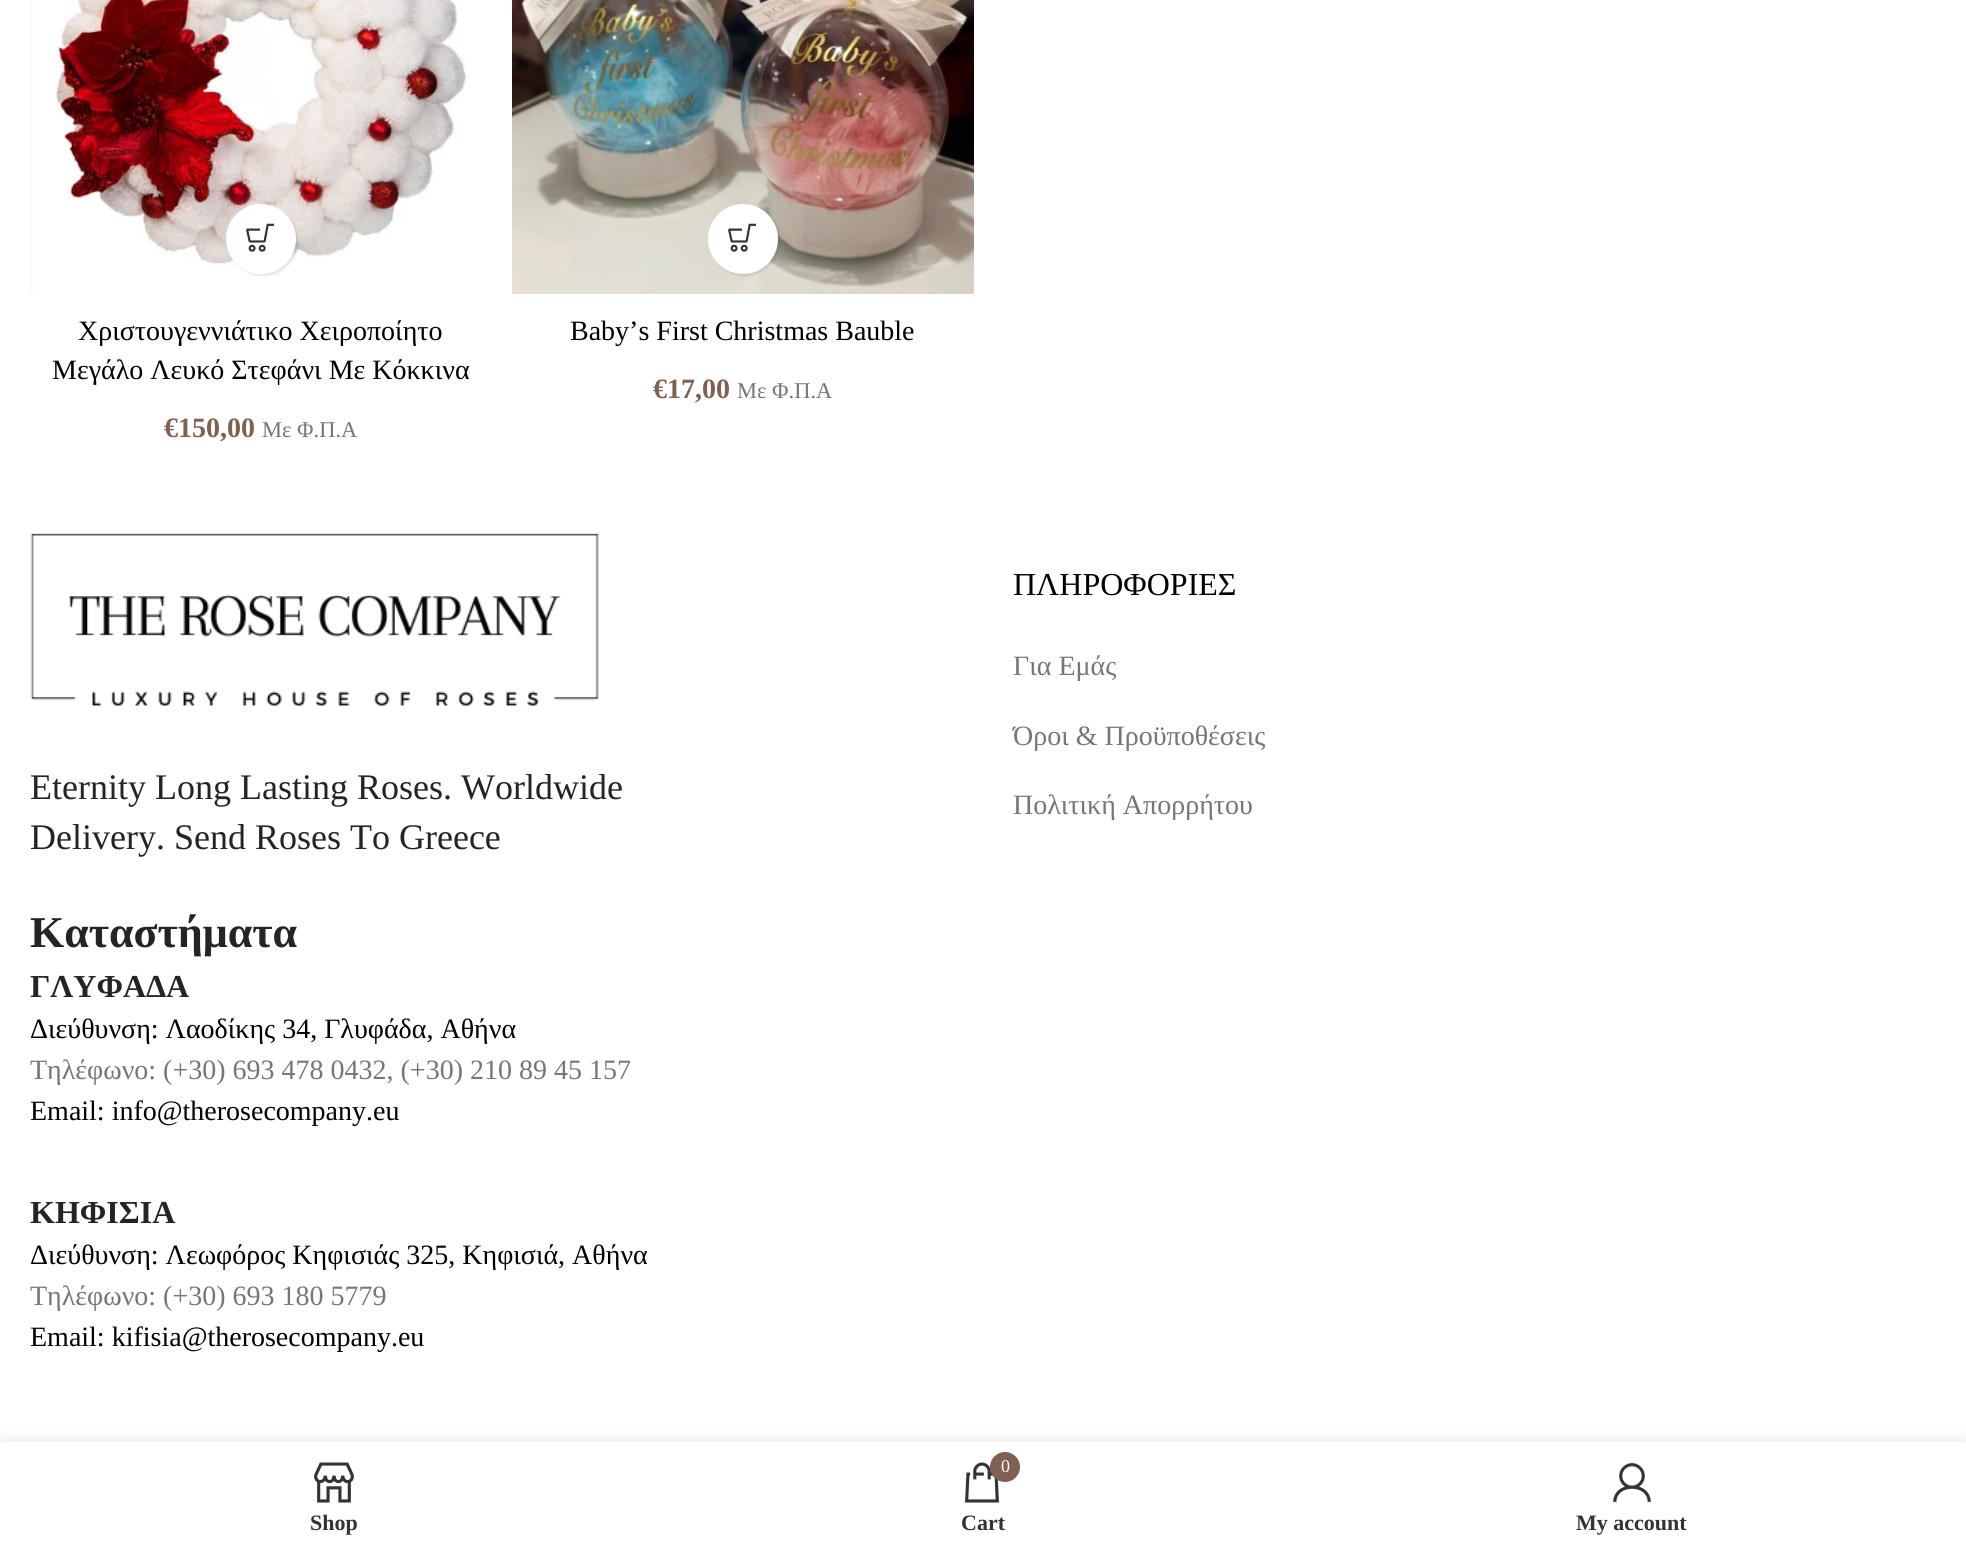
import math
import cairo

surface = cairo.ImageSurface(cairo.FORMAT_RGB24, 1966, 1551)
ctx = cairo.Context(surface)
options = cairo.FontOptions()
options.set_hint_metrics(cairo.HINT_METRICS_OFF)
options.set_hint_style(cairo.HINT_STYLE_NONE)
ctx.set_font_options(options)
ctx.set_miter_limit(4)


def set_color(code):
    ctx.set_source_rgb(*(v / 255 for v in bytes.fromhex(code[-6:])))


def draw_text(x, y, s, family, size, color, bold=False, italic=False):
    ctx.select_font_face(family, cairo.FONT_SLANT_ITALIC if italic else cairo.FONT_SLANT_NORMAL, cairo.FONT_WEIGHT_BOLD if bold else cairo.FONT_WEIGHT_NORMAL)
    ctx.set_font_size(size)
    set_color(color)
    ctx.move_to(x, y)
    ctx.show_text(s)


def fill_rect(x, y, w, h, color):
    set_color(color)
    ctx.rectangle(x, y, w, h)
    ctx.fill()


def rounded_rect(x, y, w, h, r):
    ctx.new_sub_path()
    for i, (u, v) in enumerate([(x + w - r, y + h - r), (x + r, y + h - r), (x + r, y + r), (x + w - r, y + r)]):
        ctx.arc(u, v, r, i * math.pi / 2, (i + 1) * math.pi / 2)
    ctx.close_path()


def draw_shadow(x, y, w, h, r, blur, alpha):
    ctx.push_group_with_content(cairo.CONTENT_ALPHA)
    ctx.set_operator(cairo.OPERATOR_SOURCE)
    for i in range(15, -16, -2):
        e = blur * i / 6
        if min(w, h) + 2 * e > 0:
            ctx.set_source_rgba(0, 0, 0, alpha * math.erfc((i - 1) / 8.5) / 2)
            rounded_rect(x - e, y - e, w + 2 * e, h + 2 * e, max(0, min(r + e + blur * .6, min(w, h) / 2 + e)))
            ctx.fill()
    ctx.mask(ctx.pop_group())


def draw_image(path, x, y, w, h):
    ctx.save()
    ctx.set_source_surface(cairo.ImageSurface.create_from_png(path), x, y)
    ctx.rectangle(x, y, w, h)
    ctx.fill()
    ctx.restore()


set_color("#ffffff")
ctx.paint()
draw_image("assets/img1.png", 30, 0, 437, 294)
set_color("#000000")
draw_shadow(228, 206, 70, 70, 35, 1, 0.1)
set_color("#ffffff")
ctx.arc(261, 239, 35, 0, 2 * math.pi)
ctx.fill()
draw_image("assets/img2.png", 246, 223, 28, 29)
draw_text(78, 340, "Χριστουγεννιάτικο Χειροποίητο", "Liberation Serif", 28, "#000000")
draw_text(52, 379, "Μεγάλο Λευκό Στεφάνι Με Κόκκινα", "Liberation Serif", 28, "#000000")
draw_text(164, 437, "€150,00", "Liberation Serif", 28, "#7f6051", bold=True)
draw_text(262, 437, "Με Φ.Π.Α", "Liberation Serif", 22.5, "#767676")
draw_image("assets/img3.png", 512, 0, 462, 294)
set_color("#000000")
draw_shadow(710, 206, 70, 70, 35, 1, 0.1)
set_color("#ffffff")
ctx.arc(743, 239, 35, 0, 2 * math.pi)
ctx.fill()
draw_image("assets/img2.png", 728, 223, 28, 29)
draw_text(570, 340, "Baby’s First Christmas Bauble", "Liberation Serif", 28, "#000000")
draw_text(653, 398, "€17,00", "Liberation Serif", 28, "#7f6051", bold=True)
draw_text(737, 398, "Με Φ.Π.Α", "Liberation Serif", 22.5, "#767676")
draw_text(1013, 595, "ΠΛΗΡΟΦΟΡΙΕΣ", "Liberation Serif", 32, "#000000")
draw_text(1013, 675, "Για Εμάς", "Liberation Serif", 28, "#767676")
draw_text(1013, 745, "Όροι & Προϋποθέσεις", "Liberation Serif", 28, "#767676")
draw_text(1013, 814, "Πολιτική Απορρήτου", "Liberation Serif", 28, "#767676")
draw_image("assets/img4.png", 30, 533, 569, 174)
draw_text(30, 799, "Eternity Long Lasting Roses. Worldwide", "Liberation Serif", 36, "#242424")
draw_text(30, 849, "Delivery. Send Roses To Greece", "Liberation Serif", 36, "#242424")
draw_text(30, 947, "Καταστήματα", "Liberation Serif", 44, "#242424", bold=True)
draw_text(30, 997, "ΓΛΥΦΑΔΑ", "Liberation Serif", 32, "#242424", bold=True)
draw_text(30, 1038, "Διεύθυνση: Λαοδίκης 34, Γλυφάδα, Αθήνα", "Liberation Serif", 28, "#000000")
draw_text(30, 1079, "Τηλέφωνο: (+30) 693 478 0432, (+30) 210 89 45 157", "Liberation Serif", 28, "#767676")
draw_text(30, 1120, "Email: info@therosecompany.eu", "Liberation Serif", 28, "#000000")
draw_text(30, 1223, "ΚΗΦΙΣΙΑ", "Liberation Serif", 32, "#242424", bold=True)
draw_text(30, 1264, "Διεύθυνση: Λεωφόρος Κηφισιάς 325, Κηφισιά, Αθήνα", "Liberation Serif", 28, "#000000")
draw_text(30, 1305, "Τηλέφωνο: (+30) 693 180 5779", "Liberation Serif", 28, "#767676")
draw_text(30, 1346, "Email: kifisia@therosecompany.eu", "Liberation Serif", 28, "#000000")
set_color("#000000")
draw_shadow(0, 1442, 1966, 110, 0, 9, 0.12)
fill_rect(0, 1442, 1966, 109, "#ffffff")
draw_image("assets/img5.png", 314, 1462, 40, 41)
draw_text(310, 1530, "Shop", "Liberation Serif", 22, "#333333", bold=True)
draw_image("assets/img6.png", 965, 1462, 34, 41)
set_color("#7f6051")
ctx.arc(1005, 1467, 15, 0, 2 * math.pi)
ctx.fill()
draw_text(1001, 1472, "0", "Liberation Serif", 18, "#ffffff")
draw_text(961, 1530, "Cart", "Liberation Serif", 22, "#333333", bold=True)
draw_image("assets/img7.png", 1613, 1463, 38, 39)
draw_text(1576, 1530, "My account", "Liberation Serif", 22, "#333333", bold=True)
surface.write_to_png("output.png")
